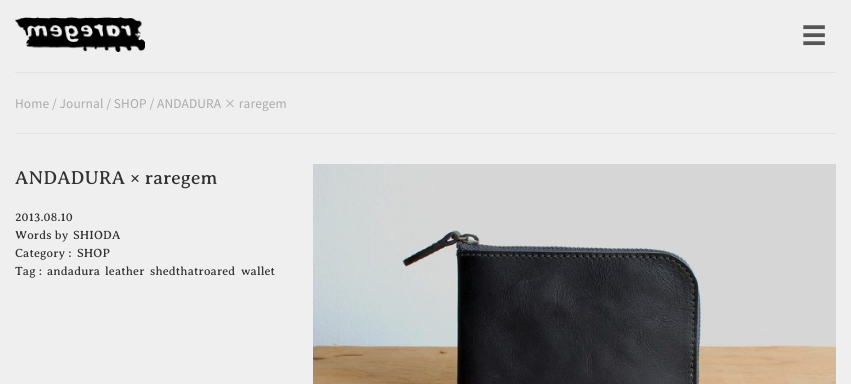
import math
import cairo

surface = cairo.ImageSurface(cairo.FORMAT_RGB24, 851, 384)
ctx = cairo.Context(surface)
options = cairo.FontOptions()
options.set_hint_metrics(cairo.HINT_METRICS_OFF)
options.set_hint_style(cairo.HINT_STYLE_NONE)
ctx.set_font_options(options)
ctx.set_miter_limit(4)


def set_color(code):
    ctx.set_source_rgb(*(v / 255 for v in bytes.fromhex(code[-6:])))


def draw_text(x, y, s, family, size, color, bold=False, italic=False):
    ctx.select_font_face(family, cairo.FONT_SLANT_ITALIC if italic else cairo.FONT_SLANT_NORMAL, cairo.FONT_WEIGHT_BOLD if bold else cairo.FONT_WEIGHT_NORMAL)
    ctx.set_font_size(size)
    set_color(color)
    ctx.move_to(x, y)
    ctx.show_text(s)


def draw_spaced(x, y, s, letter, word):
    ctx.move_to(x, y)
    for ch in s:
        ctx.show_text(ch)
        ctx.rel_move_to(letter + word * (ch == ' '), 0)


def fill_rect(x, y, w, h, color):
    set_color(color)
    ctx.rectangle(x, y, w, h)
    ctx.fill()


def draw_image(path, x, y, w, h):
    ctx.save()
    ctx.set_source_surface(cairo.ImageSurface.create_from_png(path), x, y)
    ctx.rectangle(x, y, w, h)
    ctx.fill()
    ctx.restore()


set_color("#efefef")
ctx.paint()
draw_image("assets/img1.png", 15, 17, 130, 35)
draw_text(802, 44, "☰", "WenQuanYi Zen Hei Medium", 24, "#555555")
fill_rect(15, 72, 821, 1, "#e2e2e2")
fill_rect(15, 133, 821, 1, "#e2e2e2")
ctx.select_font_face("Noto Sans JP")
ctx.set_font_size(12)
set_color("#aaaaaa")
draw_spaced(15, 108, "Home / Journal / SHOP / ANDADURA × raregem", 0.1, 0)
draw_text(15, 184, "ANDADURA × raregem", "Averia Serif Libre", 19, "#333333")
ctx.set_font_size(12)
draw_spaced(15, 221, "2013.08.10", 0.1, 0)
draw_spaced(15, 239, "Words by", 0.1, 0)
draw_spaced(73, 239, "SHIODA", 0.1, 0)
draw_spaced(15, 257, "Category :", 0.1, 0)
draw_spaced(77, 257, "SHOP", 0.1, 0)
draw_spaced(15, 275, "Tag :", 0.1, 0)
draw_spaced(47, 275, "andadura", 0.1, 0)
draw_spaced(105, 275, "leather", 0.1, 0)
draw_spaced(150, 275, "shedthatroared", 0.1, 0)
draw_spaced(241, 275, "wallet", 0.1, 0)
draw_image("assets/img2.png", 313, 164, 523, 220)
surface.write_to_png("output.png")
